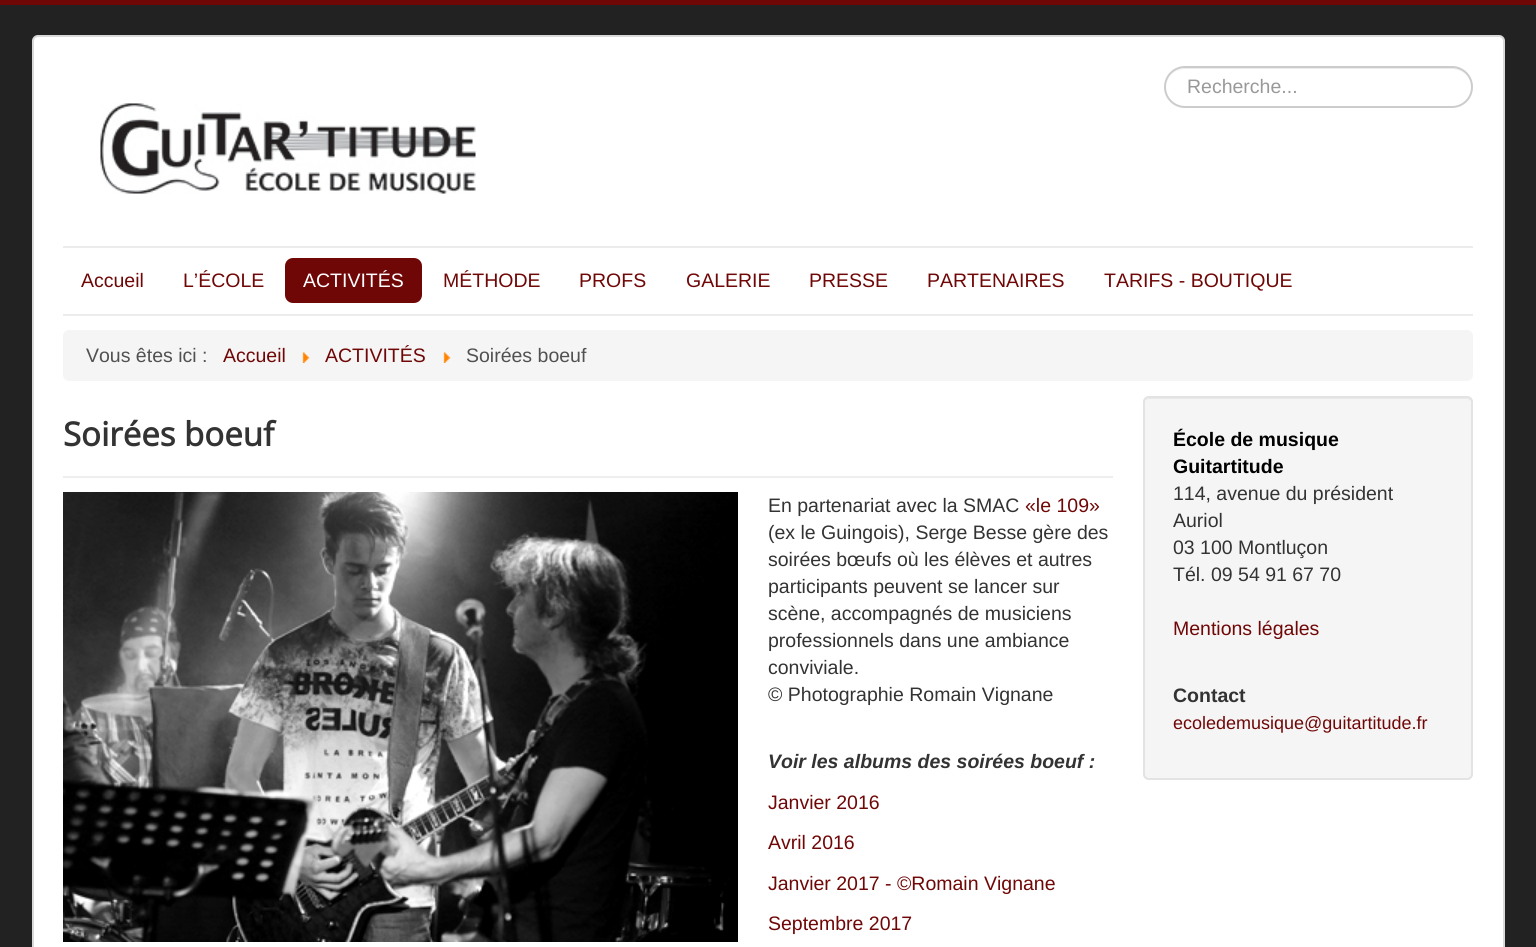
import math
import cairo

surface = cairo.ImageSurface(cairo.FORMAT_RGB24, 1536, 947)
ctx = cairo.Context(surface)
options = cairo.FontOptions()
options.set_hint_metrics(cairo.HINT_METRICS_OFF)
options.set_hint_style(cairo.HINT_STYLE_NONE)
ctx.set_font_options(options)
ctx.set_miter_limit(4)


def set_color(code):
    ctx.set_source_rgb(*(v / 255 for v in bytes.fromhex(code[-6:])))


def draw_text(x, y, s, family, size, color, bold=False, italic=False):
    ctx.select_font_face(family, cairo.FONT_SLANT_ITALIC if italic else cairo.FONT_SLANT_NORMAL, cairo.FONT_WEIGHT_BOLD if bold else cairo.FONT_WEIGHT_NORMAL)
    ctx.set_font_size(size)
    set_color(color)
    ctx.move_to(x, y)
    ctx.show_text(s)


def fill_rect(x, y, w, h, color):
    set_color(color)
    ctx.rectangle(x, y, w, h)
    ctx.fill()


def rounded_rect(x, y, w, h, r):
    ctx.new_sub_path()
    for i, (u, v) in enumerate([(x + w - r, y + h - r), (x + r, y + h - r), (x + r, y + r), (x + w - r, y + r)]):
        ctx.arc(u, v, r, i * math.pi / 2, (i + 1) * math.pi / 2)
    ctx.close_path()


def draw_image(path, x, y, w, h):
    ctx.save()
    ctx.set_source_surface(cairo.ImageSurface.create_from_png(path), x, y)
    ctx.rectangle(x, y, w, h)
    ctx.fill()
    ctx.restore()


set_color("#222222")
ctx.paint()
fill_rect(0, 0, 1536, 5, "#700707")
set_color("#ffffff")
rounded_rect(32, 35, 1473, 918, 6)
ctx.fill()
rounded_rect(33, 36, 1471, 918, 5)
ctx.set_source_rgba(0, 0, 0, 0.15)
ctx.stroke()
set_color("#ececec")
ctx.new_path()
ctx.move_to(1185, 69)
ctx.line_to(1452, 69)
ctx.curve_to(1463, 69, 1472, 78, 1472, 88)
ctx.curve_to(1472, 77, 1463, 68, 1452, 68)
ctx.line_to(1186, 68)
ctx.curve_to(1175, 68, 1166, 77, 1166, 88)
ctx.curve_to(1166, 78, 1174, 69, 1185, 69)
ctx.close_path()
ctx.fill()
rounded_rect(1165, 67, 307, 40, 20)
set_color("#cccccc")
ctx.stroke()
draw_text(1187, 93, "Recherche...", "Liberation Sans", 19.5, "#999999")
draw_image("assets/img1.png", 100, 103, 376, 91)
fill_rect(63, 246, 1410, 2, "#ececec")
fill_rect(63, 314, 1410, 2, "#ececec")
draw_text(81, 287, "Accueil", "Liberation Sans", 19.5, "#700707")
draw_text(183, 287, "L’ÉCOLE", "Liberation Sans", 19.5, "#700707")
rounded_rect(285, 258, 137, 45, 8)
ctx.fill()
draw_text(303, 287, "ACTIVITÉS", "Liberation Sans", 19.5, "#ffffff")
draw_text(443, 287, "MÉTHODE", "Liberation Sans", 19.5, "#700707")
draw_text(579, 287, "PROFS", "Liberation Sans", 19.5, "#700707")
draw_text(686, 287, "GALERIE", "Liberation Sans", 19.5, "#700707")
draw_text(809, 287, "PRESSE", "Liberation Sans", 19.5, "#700707")
draw_text(927, 287, "PARTENAIRES", "Liberation Sans", 19.5, "#700707")
draw_text(1104, 287, "TARIFS - BOUTIQUE", "Liberation Sans", 19.5, "#700707")
set_color("#f5f5f5")
rounded_rect(63, 330, 1410, 51, 6)
ctx.fill()
draw_text(86, 362, "Vous êtes ici :", "Liberation Sans", 19.5, "#515151")
draw_text(223, 362, "Accueil", "Liberation Sans", 19.5, "#700707")
draw_image("assets/img2.png", 302, 352, 8, 11)
draw_text(325, 362, "ACTIVITÉS", "Liberation Sans", 19.5, "#700707")
draw_image("assets/img2.png", 443, 352, 8, 11)
draw_text(466, 362, "Soirées boeuf", "Liberation Sans", 19.5, "#515151")
fill_rect(63, 476, 1050, 2, "#eeeeee")
draw_text(63, 446, "Soirées boeuf", "Open Sans", 33, "#333333", bold=True)
draw_image("assets/img3.png", 63, 492, 675, 450)
draw_text(768, 512, "En partenariat avec la SMAC", "Liberation Sans", 19.5, "#333333")
draw_text(1025, 512, "«le 109»", "Liberation Sans", 19.5, "#700707")
draw_text(768, 539, "(ex le Guingois), Serge Besse gère des", "Liberation Sans", 19.5, "#333333")
draw_text(768, 566, "soirées bœufs où les élèves et autres", "Liberation Sans", 19.5, "#333333")
draw_text(768, 593, "participants peuvent se lancer sur", "Liberation Sans", 19.5, "#333333")
draw_text(768, 620, "scène, accompagnés de musiciens", "Liberation Sans", 19.5, "#333333")
draw_text(768, 647, "professionnels dans une ambiance", "Liberation Sans", 19.5, "#333333")
draw_text(768, 674, "conviviale.", "Liberation Sans", 19.5, "#333333")
draw_text(768, 701, "© Photographie Romain Vignane", "Liberation Sans", 19.5, "#333333")
draw_text(768, 768, "Voir les albums des soirées boeuf :", "Liberation Sans", 19.5, "#333333", bold=True, italic=True)
draw_text(768, 809, "Janvier 2016", "Liberation Sans", 19.5, "#700707")
draw_text(768, 849, "Avril 2016", "Liberation Sans", 19.5, "#700707")
draw_text(768, 890, "Janvier 2017 - ©Romain Vignane", "Liberation Sans", 19.5, "#700707")
draw_text(768, 930, "Septembre 2017", "Liberation Sans", 19.5, "#700707")
set_color("#f5f5f5")
rounded_rect(1143, 396, 330, 384, 6)
ctx.fill()
set_color("#e9e9e9")
ctx.new_path()
ctx.move_to(1149, 399)
ctx.line_to(1467, 399)
ctx.curve_to(1469, 399, 1472, 401, 1472, 404)
ctx.line_to(1472, 403)
ctx.curve_to(1472, 400, 1470, 398, 1467, 398)
ctx.line_to(1150, 398)
ctx.curve_to(1148, 398, 1147, 399, 1146, 400)
ctx.close_path()
ctx.fill()
rounded_rect(1144, 397, 328, 382, 5)
set_color("#e3e3e3")
ctx.stroke()
draw_text(1173, 446, "École de musique", "Liberation Sans", 19.5, "#000000", bold=True)
draw_text(1173, 473, "Guitartitude", "Liberation Sans", 19.5, "#000000", bold=True)
draw_text(1173, 500, "114, avenue du président", "Liberation Sans", 19.5, "#333333")
draw_text(1173, 527, "Auriol", "Liberation Sans", 19.5, "#333333")
draw_text(1173, 554, "03 100 Montluçon", "Liberation Sans", 19.5, "#333333")
draw_text(1173, 581, "Tél. 09 54 91 67 70", "Liberation Sans", 19.5, "#333333")
draw_text(1173, 635, "Mentions légales", "Liberation Sans", 19.5, "#700707")
draw_text(1173, 702, "Contact", "Liberation Sans", 19.5, "#333333", bold=True)
draw_text(1173, 729, "ecoledemusique@guitartitude.fr", "Liberation Sans", 18, "#700707")
surface.write_to_png("output.png")
